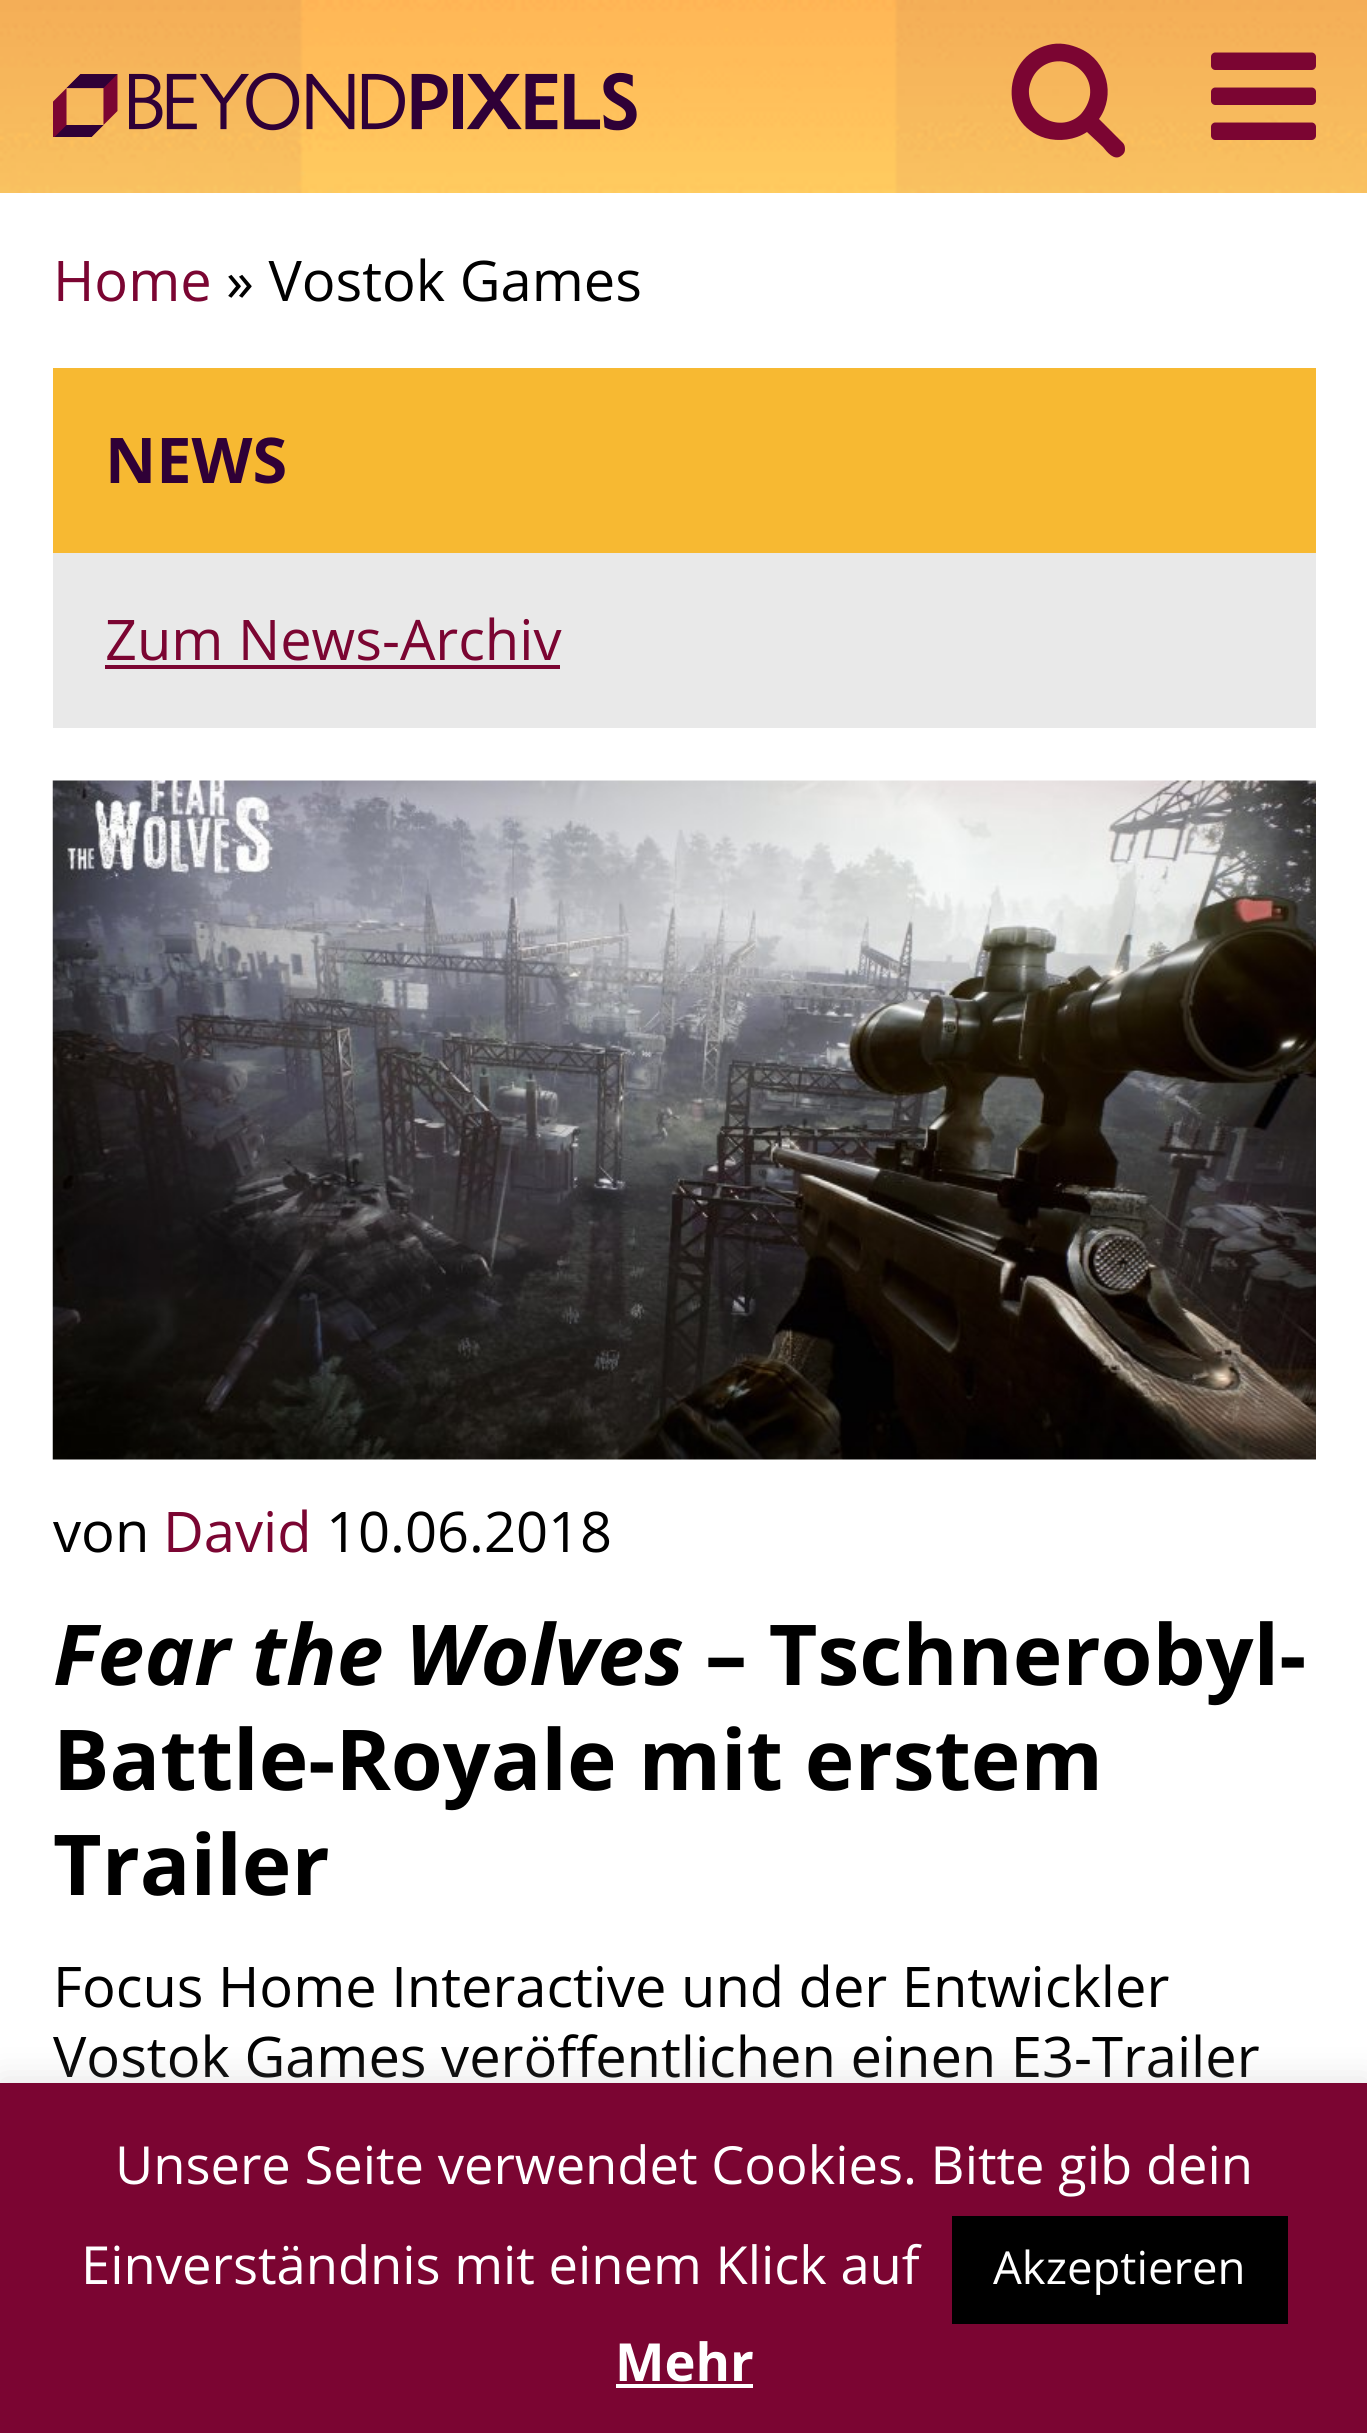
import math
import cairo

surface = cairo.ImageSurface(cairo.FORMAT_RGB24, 1367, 2433)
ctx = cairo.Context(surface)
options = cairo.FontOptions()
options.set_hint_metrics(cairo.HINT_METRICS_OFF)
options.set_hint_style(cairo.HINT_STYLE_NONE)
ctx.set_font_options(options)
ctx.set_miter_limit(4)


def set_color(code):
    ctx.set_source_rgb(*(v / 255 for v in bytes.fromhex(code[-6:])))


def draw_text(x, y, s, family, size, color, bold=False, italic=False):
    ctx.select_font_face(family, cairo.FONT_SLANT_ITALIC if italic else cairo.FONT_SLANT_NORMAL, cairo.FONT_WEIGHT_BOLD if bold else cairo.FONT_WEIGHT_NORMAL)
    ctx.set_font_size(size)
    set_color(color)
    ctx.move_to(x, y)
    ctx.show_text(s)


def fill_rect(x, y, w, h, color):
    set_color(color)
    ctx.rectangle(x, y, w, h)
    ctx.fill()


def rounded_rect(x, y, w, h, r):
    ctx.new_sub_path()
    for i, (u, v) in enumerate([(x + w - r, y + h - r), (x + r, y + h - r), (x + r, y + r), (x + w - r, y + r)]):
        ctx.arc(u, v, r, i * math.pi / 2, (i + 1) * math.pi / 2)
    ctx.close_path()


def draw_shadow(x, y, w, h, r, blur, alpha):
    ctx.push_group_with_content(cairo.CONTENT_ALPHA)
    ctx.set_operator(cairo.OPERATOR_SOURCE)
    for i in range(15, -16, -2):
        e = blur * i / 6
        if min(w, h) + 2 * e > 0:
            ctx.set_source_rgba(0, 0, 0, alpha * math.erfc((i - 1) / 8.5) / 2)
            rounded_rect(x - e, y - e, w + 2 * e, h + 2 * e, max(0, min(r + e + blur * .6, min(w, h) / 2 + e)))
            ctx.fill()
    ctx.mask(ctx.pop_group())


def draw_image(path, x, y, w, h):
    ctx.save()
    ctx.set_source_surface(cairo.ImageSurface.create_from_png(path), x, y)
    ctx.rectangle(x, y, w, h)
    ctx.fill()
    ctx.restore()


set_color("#ffffff")
ctx.paint()
draw_image("assets/img1.png", 0, 0, 1367, 193)
draw_image("assets/img2.png", 53, 72, 584, 65)
set_color("#7b0532")
ctx.new_path()
ctx.move_to(1081, 114)
ctx.curve_to(1086, 108, 1089, 102, 1090, 95)
ctx.curve_to(1093, 67, 1058, 50, 1038, 70)
ctx.curve_to(1033, 75, 1030, 82, 1029, 89)
ctx.curve_to(1027, 117, 1061, 134, 1081, 114)
ctx.close_path()
ctx.move_to(1125, 149)
ctx.curve_to(1125, 152, 1124, 154, 1121, 156)
ctx.curve_to(1114, 161, 1107, 152, 1103, 147)
ctx.line_to(1087, 132)
ctx.curve_to(1075, 140, 1059, 142, 1045, 138)
ctx.curve_to(999, 124, 1001, 57, 1048, 45)
ctx.curve_to(1059, 42, 1070, 44, 1081, 49)
ctx.curve_to(1107, 61, 1116, 95, 1099, 119)
ctx.line_to(1123, 143)
ctx.curve_to(1124, 144, 1125, 146, 1125, 149)
ctx.close_path()
ctx.fill()
draw_image("assets/img3.png", 1211, 52, 105, 88)
draw_text(53, 301, "Home", "Open Sans", 56, "#7b0532")
draw_text(226, 301, "» Vostok Games", "Open Sans", 56, "#000000")
fill_rect(53, 553, 1263, 175, "#e9e9e9")
fill_rect(53, 368, 1263, 185, "#f7b932")
draw_text(105, 483, "NEWS", "Open Sans", 63, "#2f0037", bold=True)
draw_text(105, 660, "Zum News-Archiv", "Open Sans", 56, "#7b0532")
fill_rect(105, 665, 455, 4, "#7b0532")
draw_image("assets/img4.png", 52, 780, 1264, 680)
draw_text(53, 1552, "von", "Open Sans", 56, "#000000")
draw_text(163, 1552, "David", "Open Sans", 56, "#7b0532")
draw_text(326, 1552, "10.06.2018", "Open Sans", 56, "#000000")
draw_text(53, 1685, "Fear the Wolves", "Open Sans", 84, "#000000", bold=True, italic=True)
draw_text(705, 1685, "– Tschnerobyl-", "Open Sans", 84, "#000000", bold=True)
draw_text(53, 1790, "Battle-Royale mit erstem", "Open Sans", 84, "#000000", bold=True)
draw_text(53, 1895, "Trailer", "Open Sans", 84, "#000000", bold=True)
draw_text(53, 2007, "Focus Home Interactive und der Entwickler", "Open Sans", 56, "#000000")
draw_text(53, 2077, "Vostok Games veröffentlichen einen E3-Trailer", "Open Sans", 56, "#000000")
set_color("#acabab")
draw_shadow(0, 2079, 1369, 354, 0, 17.5, 0.3)
fill_rect(0, 2083, 1367, 350, "#7b0532")
draw_text(115, 2184, "Unsere Seite verwendet Cookies. Bitte gib dein", "Open Sans", 52.5, "#ffffff")
draw_text(81, 2284, "Einverständnis mit einem Klick auf", "Open Sans", 52.5, "#ffffff")
fill_rect(952, 2216, 336, 108, "#000000")
draw_text(993, 2284, "Akzeptieren", "Open Sans", 45.5, "#ffffff")
draw_text(615, 2381, "Mehr", "Open Sans", 52.5, "#ffffff", bold=True)
fill_rect(616, 2384, 137, 4, "#ffffff")
surface.write_to_png("output.png")
